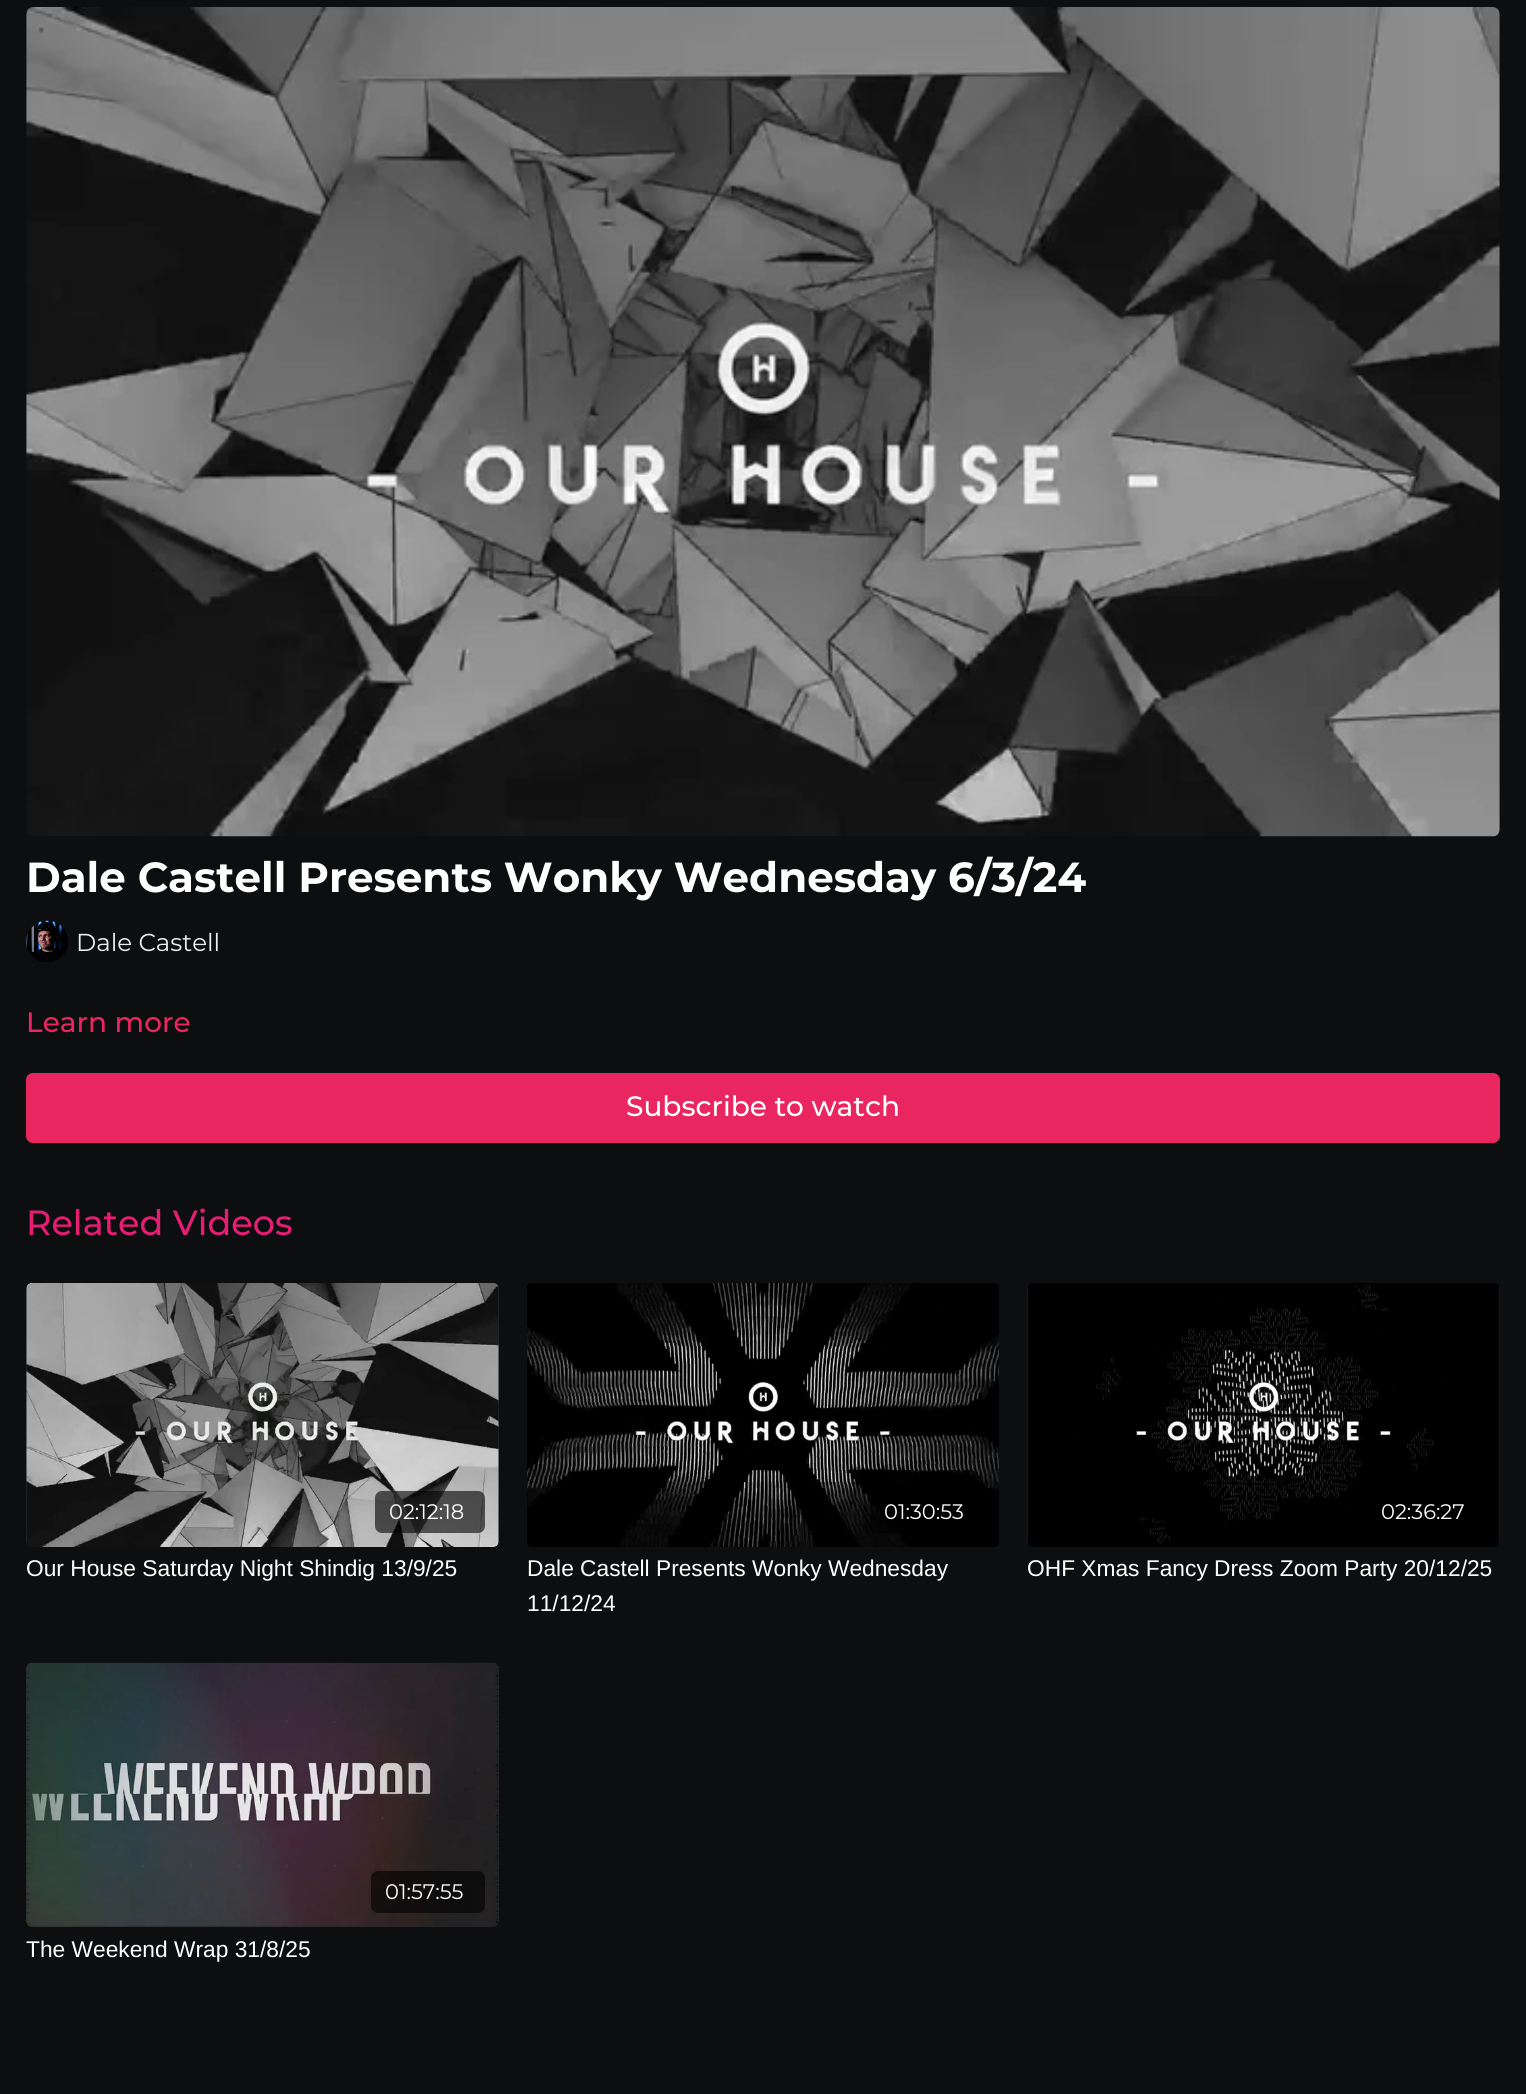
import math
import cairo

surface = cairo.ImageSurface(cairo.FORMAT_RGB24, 1526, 2094)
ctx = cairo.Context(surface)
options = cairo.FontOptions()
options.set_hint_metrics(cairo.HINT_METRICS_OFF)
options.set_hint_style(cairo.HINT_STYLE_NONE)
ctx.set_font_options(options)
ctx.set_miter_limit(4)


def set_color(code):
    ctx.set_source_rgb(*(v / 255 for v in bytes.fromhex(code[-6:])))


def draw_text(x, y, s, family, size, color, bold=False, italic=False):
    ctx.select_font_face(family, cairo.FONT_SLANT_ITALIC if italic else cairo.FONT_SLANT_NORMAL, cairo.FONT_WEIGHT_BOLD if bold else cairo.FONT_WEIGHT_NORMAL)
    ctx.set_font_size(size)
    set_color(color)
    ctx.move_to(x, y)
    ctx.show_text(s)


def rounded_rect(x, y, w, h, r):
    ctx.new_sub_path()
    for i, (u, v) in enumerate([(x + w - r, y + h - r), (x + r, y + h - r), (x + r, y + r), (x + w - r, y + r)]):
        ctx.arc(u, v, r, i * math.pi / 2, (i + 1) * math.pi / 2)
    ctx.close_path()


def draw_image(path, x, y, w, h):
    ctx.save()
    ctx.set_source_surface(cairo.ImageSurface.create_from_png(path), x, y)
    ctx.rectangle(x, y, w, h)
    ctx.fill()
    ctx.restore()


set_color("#0d0e10")
ctx.paint()
draw_image("assets/img1.png", 26, 7, 1474, 830)
draw_text(26, 892, "Dale Castell Presents Wonky Wednesday 6/3/24", "Montserrat", 42, "#ffffff", bold=True)
draw_image("assets/img2.png", 26, 920, 42, 42)
draw_text(76, 951, "Dale Castell", "Montserrat", 24.5, "#eeeeee")
draw_text(26, 1032, "Learn more", "Montserrat Medium", 28, "#e9265f")
rounded_rect(26, 1073, 1474, 70, 7)
ctx.fill()
draw_text(626, 1116, "Subscribe to watch", "Montserrat Medium", 28, "#ffffff")
draw_text(26, 1235, "Related Videos", "Montserrat Medium", 35, "#e71d73")
gradient = cairo.LinearGradient(26, 1415, 499, 1415)
gradient.add_color_stop_rgba(0.08, 0.173, 0.176, 0.184, 1)
gradient.add_color_stop_rgba(0.18, 0.165, 0.169, 0.176, 1)
gradient.add_color_stop_rgba(0.33, 0.157, 0.161, 0.165, 1)
ctx.set_source(gradient)
rounded_rect(26, 1283, 473, 264, 7)
ctx.fill()
draw_image("assets/img3.png", 26, 1283, 473, 264)
ctx.set_source_rgba(0, 0, 0, 0.6)
rounded_rect(375, 1491, 110, 42, 7)
ctx.fill()
draw_text(389, 1519, "02:12:18", "Montserrat", 21, "#ffffff")
draw_text(26, 1576, "Our House Saturday Night Shindig 13/9/25", "Liberation Sans", 22.75, "#ffffff")
draw_image("assets/img4.png", 527, 1283, 472, 264)
ctx.set_source_rgba(0, 0, 0, 0.6)
rounded_rect(870, 1491, 115, 42, 7)
ctx.fill()
draw_text(884, 1519, "01:30:53", "Montserrat", 21, "#ffffff")
draw_text(527, 1576, "Dale Castell Presents Wonky Wednesday", "Liberation Sans", 22.75, "#ffffff")
draw_text(527, 1611, "11/12/24", "Liberation Sans", 22.75, "#ffffff")
gradient = cairo.LinearGradient(1027, 1415, 1500, 1415)
gradient.add_color_stop_rgba(0.08, 0.173, 0.176, 0.184, 1)
gradient.add_color_stop_rgba(0.18, 0.165, 0.169, 0.176, 1)
gradient.add_color_stop_rgba(0.33, 0.157, 0.161, 0.165, 1)
ctx.set_source(gradient)
rounded_rect(1027, 1283, 473, 264, 7)
ctx.fill()
draw_image("assets/img5.png", 1027, 1283, 473, 264)
draw_text(1381, 1519, "02:36:27", "Montserrat", 21, "#ffffff")
draw_text(1027, 1576, "OHF Xmas Fancy Dress Zoom Party 20/12/25", "Liberation Sans", 22.75, "#ffffff")
gradient = cairo.LinearGradient(26, 1795, 499, 1795)
gradient.add_color_stop_rgba(0.08, 0.173, 0.176, 0.184, 1)
gradient.add_color_stop_rgba(0.18, 0.165, 0.169, 0.176, 1)
gradient.add_color_stop_rgba(0.33, 0.157, 0.161, 0.165, 1)
ctx.set_source(gradient)
rounded_rect(26, 1663, 473, 264, 7)
ctx.fill()
draw_image("assets/img6.png", 26, 1662, 473, 265)
ctx.set_source_rgba(0, 0, 0, 0.6)
rounded_rect(371, 1871, 114, 42, 7)
ctx.fill()
draw_text(385, 1899, "01:57:55", "Montserrat", 21, "#ffffff")
draw_text(26, 1957, "The Weekend Wrap 31/8/25", "Liberation Sans", 22.75, "#ffffff")
surface.write_to_png("output.png")
